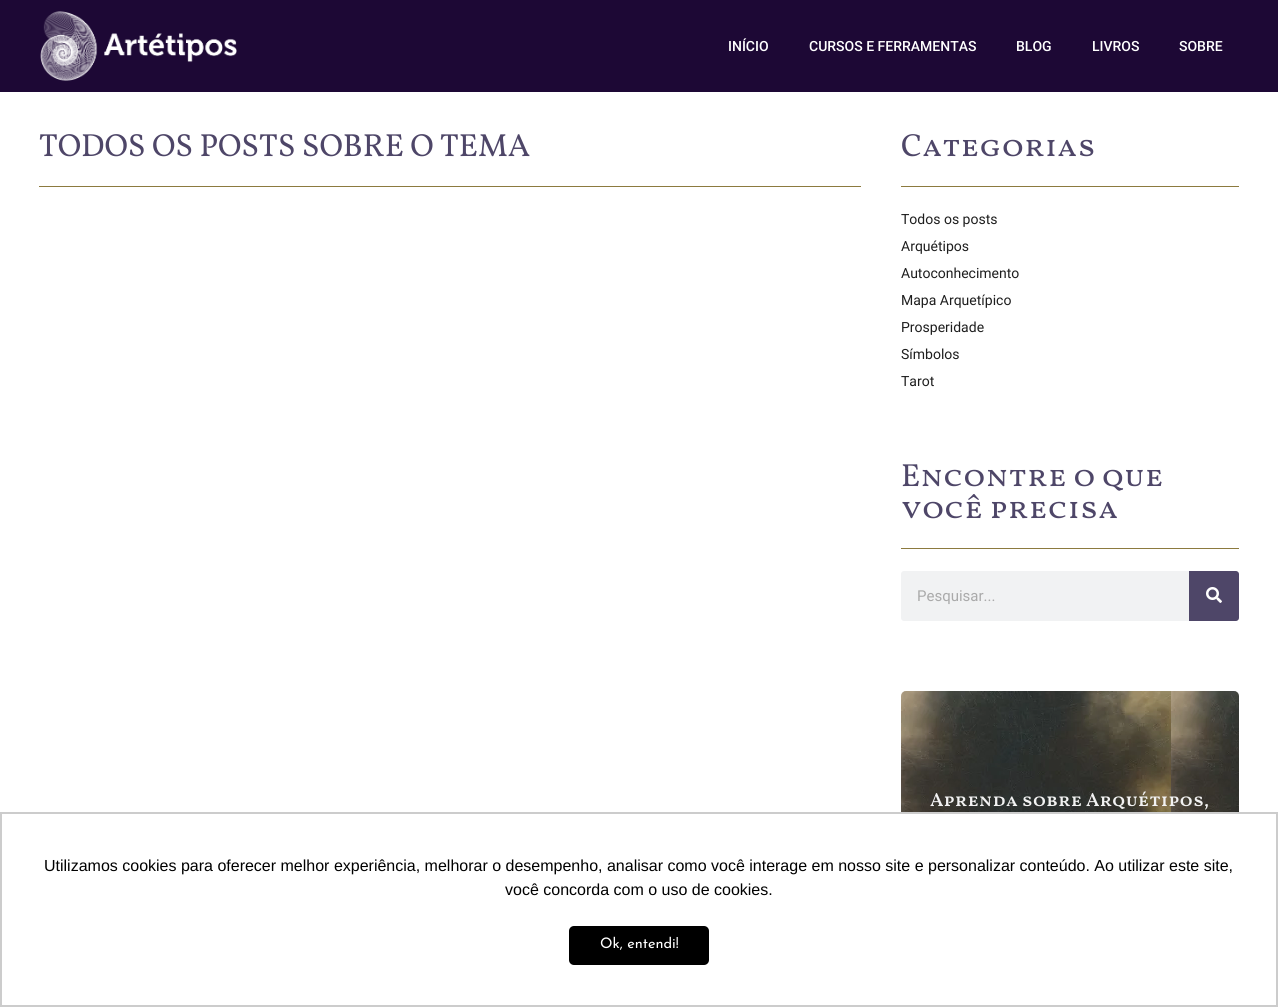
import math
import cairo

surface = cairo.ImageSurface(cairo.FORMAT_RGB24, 1278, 1007)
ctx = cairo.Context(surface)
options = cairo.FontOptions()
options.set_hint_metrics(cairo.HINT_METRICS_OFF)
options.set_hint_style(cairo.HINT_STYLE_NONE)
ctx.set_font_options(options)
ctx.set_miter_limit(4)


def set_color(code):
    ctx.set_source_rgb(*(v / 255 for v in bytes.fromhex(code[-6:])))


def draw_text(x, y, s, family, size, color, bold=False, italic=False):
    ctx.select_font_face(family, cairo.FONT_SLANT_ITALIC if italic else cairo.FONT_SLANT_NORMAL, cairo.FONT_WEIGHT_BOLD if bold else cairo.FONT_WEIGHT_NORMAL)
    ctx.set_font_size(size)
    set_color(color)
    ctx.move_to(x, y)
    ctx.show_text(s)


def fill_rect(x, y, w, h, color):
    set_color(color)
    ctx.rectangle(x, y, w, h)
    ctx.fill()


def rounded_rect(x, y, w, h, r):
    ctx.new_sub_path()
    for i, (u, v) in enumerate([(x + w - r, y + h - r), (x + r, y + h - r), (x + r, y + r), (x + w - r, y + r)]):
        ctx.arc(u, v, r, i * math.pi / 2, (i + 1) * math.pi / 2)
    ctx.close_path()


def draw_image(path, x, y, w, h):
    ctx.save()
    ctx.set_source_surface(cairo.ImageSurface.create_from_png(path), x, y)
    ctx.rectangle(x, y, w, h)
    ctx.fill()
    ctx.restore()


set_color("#ffffff")
ctx.paint()
fill_rect(0, 0, 1278, 92, "#1d0835")
draw_image("assets/img1.png", 40, 11, 197, 70)
draw_text(728, 51, "INÍCIO", "Roboto Medium", 14, "#ffffff")
draw_text(809, 51, "CURSOS E FERRAMENTAS", "Roboto Medium", 14, "#ffffff")
draw_text(1016, 51, "BLOG", "Roboto Medium", 14, "#ffffff")
draw_text(1092, 51, "LIVROS", "Roboto Medium", 14, "#ffffff")
draw_text(1179, 51, "SOBRE", "Roboto Medium", 14, "#ffffff")
draw_text(39, 156, "TODOS OS POSTS SOBRE O TEMA", "Vollkorn SC", 32, "#4e4668")
fill_rect(39, 186, 822, 1, "#8c7a3f")
draw_text(901, 156, "Categorias", "Vollkorn SC", 32, "#4e4668")
fill_rect(901, 186, 338, 1, "#8c7a3f")
draw_text(901, 224, "Todos os posts", "Roboto", 14, "#1e1e1e")
draw_text(901, 251, "Arquétipos", "Roboto", 14, "#1e1e1e")
draw_text(901, 278, "Autoconhecimento", "Roboto", 14, "#1e1e1e")
draw_text(901, 305, "Mapa Arquetípico", "Roboto", 14, "#1e1e1e")
draw_text(901, 332, "Prosperidade", "Roboto", 14, "#1e1e1e")
draw_text(901, 359, "Símbolos", "Roboto", 14, "#1e1e1e")
draw_text(901, 386, "Tarot", "Roboto", 14, "#1e1e1e")
draw_text(901, 486, "Encontre o que", "Vollkorn SC", 32, "#4e4668")
draw_text(901, 518, "você precisa", "Vollkorn SC", 32, "#4e4668")
fill_rect(901, 548, 338, 1, "#8c7a3f")
set_color("#f1f2f3")
rounded_rect(901, 571, 338, 50, 3)
ctx.fill()
draw_text(917, 601, "Pesquisar...", "Roboto", 15, "#aaaaaa")
set_color("#4e4668")
ctx.new_path()
ctx.move_to(1189, 571)
ctx.line_to(1236, 571)
ctx.curve_to(1237.5, 571, 1239, 572.5, 1239, 574)
ctx.line_to(1239, 618)
ctx.curve_to(1239, 619.5, 1237.5, 621, 1236, 621)
ctx.line_to(1189, 621)
ctx.close_path()
ctx.fill()
draw_image("assets/img2.png", 1206, 587, 16, 16)
draw_image("assets/img3.png", 901, 691, 338, 121)
draw_text(930, 806, "Aprenda sobre Arquétipos,", "Vollkorn SC SemiBold", 19, "#f2f2f2")
ctx.rectangle(1, 813, 1276, 193)
set_color("#cccccc")
ctx.stroke()
draw_text(44, 871, "Utilizamos cookies para oferecer melhor experiência, melhorar o desempenho, analisar como você interage em nosso site e personalizar conteúdo. Ao utilizar este site,", "Liberation Sans", 16, "#000000")
draw_text(505, 895, "você concorda com o uso de cookies.", "Liberation Sans", 16, "#000000")
rounded_rect(569, 926, 140, 39, 5)
ctx.fill()
draw_text(600, 948, "Ok, entendi!", "Josefin Sans", 14.5, "#ffffff")
surface.write_to_png("output.png")
